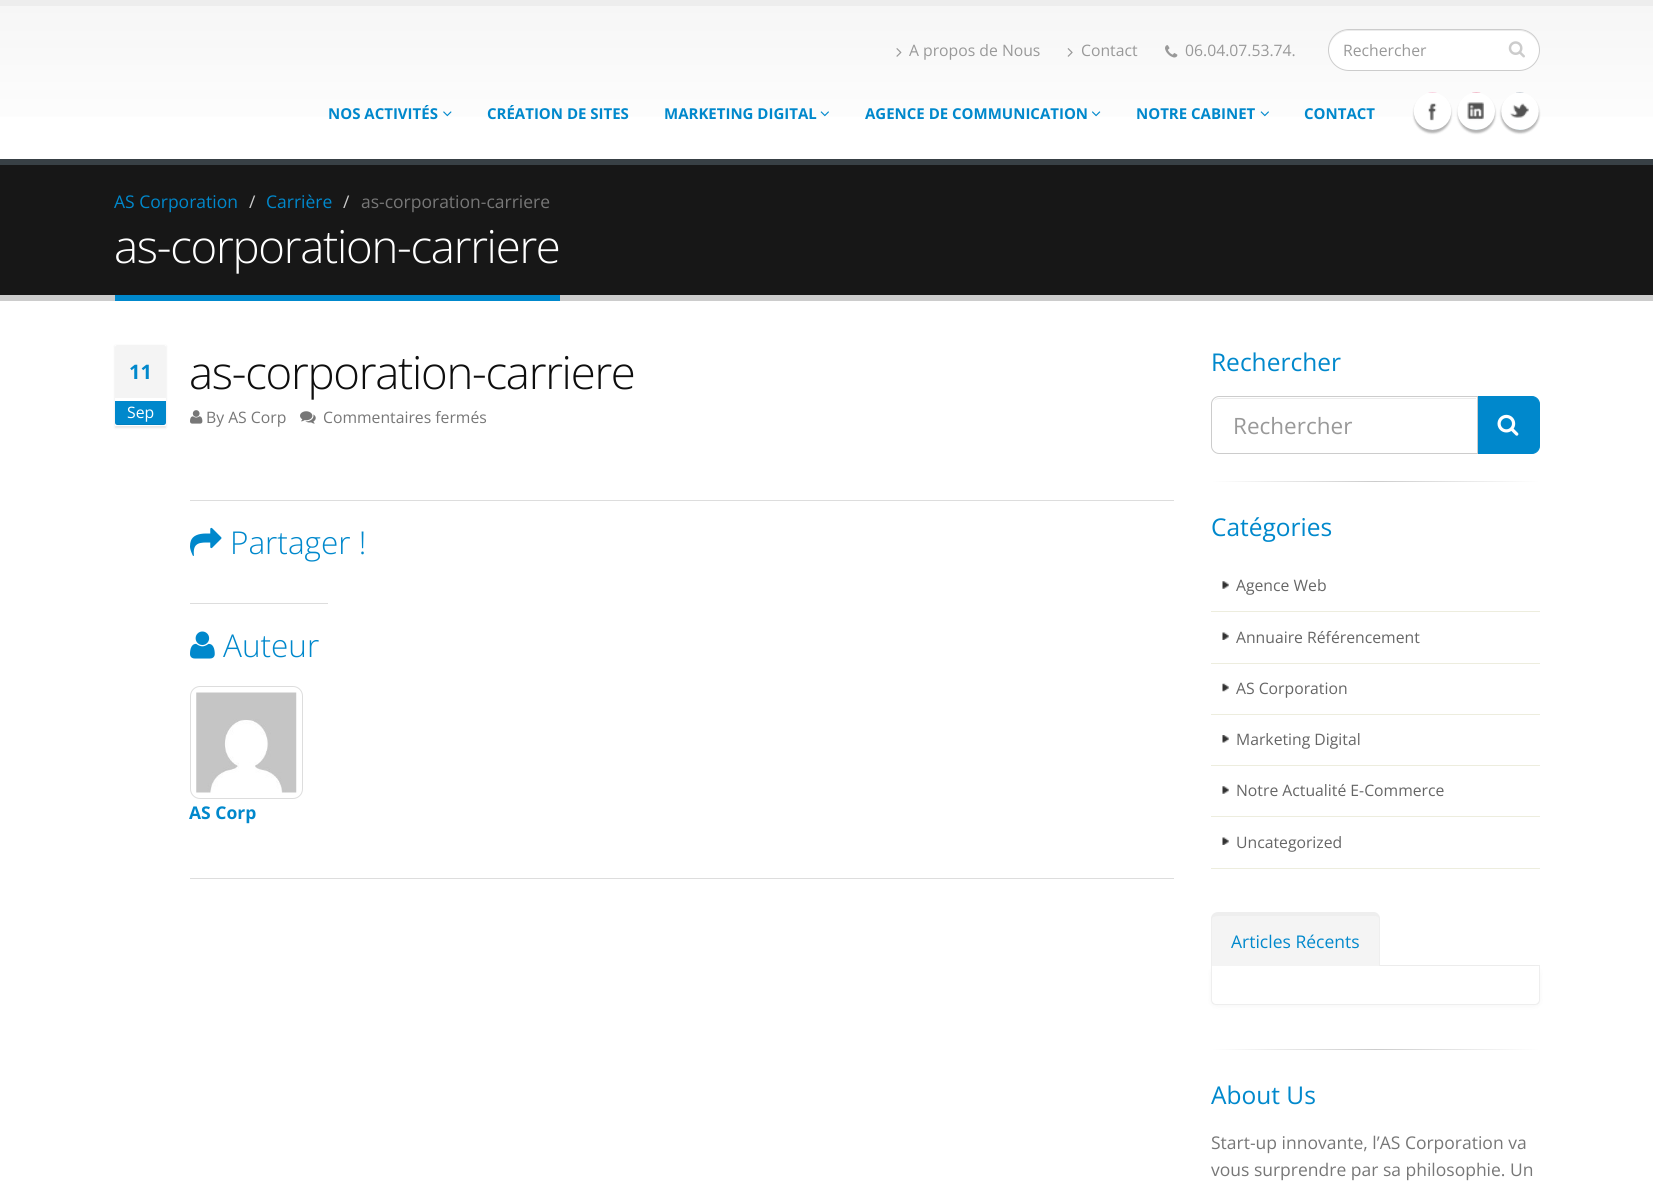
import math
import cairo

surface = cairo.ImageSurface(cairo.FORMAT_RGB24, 1653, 1190)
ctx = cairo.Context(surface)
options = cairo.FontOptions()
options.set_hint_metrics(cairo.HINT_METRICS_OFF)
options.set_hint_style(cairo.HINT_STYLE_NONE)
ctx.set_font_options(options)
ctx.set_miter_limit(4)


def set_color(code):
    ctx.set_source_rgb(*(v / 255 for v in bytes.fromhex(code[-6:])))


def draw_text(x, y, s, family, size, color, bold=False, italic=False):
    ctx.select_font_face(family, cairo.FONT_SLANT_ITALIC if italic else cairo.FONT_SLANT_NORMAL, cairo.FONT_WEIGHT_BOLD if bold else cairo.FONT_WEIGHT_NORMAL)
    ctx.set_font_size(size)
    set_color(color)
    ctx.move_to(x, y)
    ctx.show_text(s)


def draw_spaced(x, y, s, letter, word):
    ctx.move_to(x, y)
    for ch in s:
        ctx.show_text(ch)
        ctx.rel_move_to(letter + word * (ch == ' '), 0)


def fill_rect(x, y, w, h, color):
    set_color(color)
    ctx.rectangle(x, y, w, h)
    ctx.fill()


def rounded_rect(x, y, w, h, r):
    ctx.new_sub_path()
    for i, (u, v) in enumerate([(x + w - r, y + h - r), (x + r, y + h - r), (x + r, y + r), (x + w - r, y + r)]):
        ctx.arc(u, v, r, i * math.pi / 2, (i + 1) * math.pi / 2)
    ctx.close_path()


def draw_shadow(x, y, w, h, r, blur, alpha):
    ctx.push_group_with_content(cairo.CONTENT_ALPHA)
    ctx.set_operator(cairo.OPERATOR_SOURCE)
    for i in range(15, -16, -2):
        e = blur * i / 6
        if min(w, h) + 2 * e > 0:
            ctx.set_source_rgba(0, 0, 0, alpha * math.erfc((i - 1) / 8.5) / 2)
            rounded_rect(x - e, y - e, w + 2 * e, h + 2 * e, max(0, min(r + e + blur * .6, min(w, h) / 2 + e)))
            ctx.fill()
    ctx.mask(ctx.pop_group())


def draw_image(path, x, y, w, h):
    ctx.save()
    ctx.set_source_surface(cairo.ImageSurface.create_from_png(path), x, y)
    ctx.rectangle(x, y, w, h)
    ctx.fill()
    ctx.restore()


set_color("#ffffff")
ctx.paint()
gradient = cairo.LinearGradient(827, 6.2, 827, 159)
gradient.add_color_stop_rgba(0, 0.965, 0.965, 0.965, 1)
gradient.add_color_stop_rgba(1, 1, 1, 1, 1)
ctx.set_source(gradient)
ctx.rectangle(0, 6, 1653, 111)
ctx.fill()
fill_rect(0, 0, 1653, 6, "#ededed")
draw_image("assets/img1.png", 896, 48, 6, 9)
draw_text(909, 56, "A propos de Nous", "Open Sans", 15.75, "#999999")
draw_image("assets/img2.png", 1067, 48, 6, 9)
draw_text(1081, 56, "Contact", "Open Sans", 15.75, "#999999")
draw_image("assets/img3.png", 1165, 45, 13, 13)
draw_text(1185, 56, "06.04.07.53.74.", "Open Sans", 15.75, "#999999")
set_color("#ffffff")
rounded_rect(1328, 29, 212, 42, 21)
ctx.fill()
set_color("#ececec")
ctx.new_path()
ctx.move_to(1349, 31)
ctx.line_to(1519, 31)
ctx.curve_to(1530, 31, 1539, 40, 1539, 51)
ctx.line_to(1539, 50)
ctx.curve_to(1539, 39, 1530, 30, 1519, 30)
ctx.line_to(1349, 30)
ctx.curve_to(1338, 30, 1329, 39, 1329, 50)
ctx.line_to(1329, 51)
ctx.curve_to(1329, 40, 1338, 31, 1349, 31)
ctx.close_path()
ctx.fill()
rounded_rect(1328.5, 29.5, 211, 41, 20.5)
set_color("#cccccc")
ctx.set_line_width(1)
ctx.stroke()
draw_text(1343, 56, "Rechercher", "Open Sans", 15.75, "#999999")
draw_image("assets/img4.png", 1508, 41, 17, 17)
draw_text(328, 119, "NOS ACTIVITÉS", "Open Sans", 15, "#0088cc", bold=True)
draw_image("assets/img5.png", 443, 111, 9, 6)
draw_text(487, 119, "CRÉATION DE SITES", "Open Sans", 15, "#0088cc", bold=True)
draw_text(664, 119, "MARKETING DIGITAL", "Open Sans", 15, "#0088cc", bold=True)
draw_image("assets/img6.png", 820, 111, 9, 6)
draw_text(865, 119, "AGENCE DE COMMUNICATION", "Open Sans", 15, "#0088cc", bold=True)
draw_image("assets/img7.png", 1092, 111, 9, 6)
draw_text(1136, 119, "NOTRE CABINET", "Open Sans", 15, "#0088cc", bold=True)
draw_image("assets/img6.png", 1260, 111, 9, 6)
draw_text(1304, 119, "CONTACT", "Open Sans", 15, "#0088cc", bold=True)
set_color("#000000")
draw_shadow(1414, 95, 37, 38, 18.5, 1, 0.3)
draw_image("assets/img8.png", 1413, 92, 39, 38)
draw_shadow(1458, 95, 37, 38, 18.5, 1, 0.3)
draw_image("assets/img9.png", 1457, 92, 38, 38)
draw_shadow(1501, 95, 38, 38, 19, 1, 0.3)
draw_image("assets/img10.png", 1501, 92, 38, 38)
fill_rect(0, 165, 1653, 130, "#171717")
fill_rect(0, 159, 1653, 6, "#384045")
fill_rect(0, 295, 1653, 6, "#cccccc")
draw_text(114, 208, "AS Corporation", "Open Sans", 17.5, "#0088cc")
draw_text(249, 208, "/", "Open Sans", 17.5, "#cccccc")
draw_text(266, 208, "Carrière", "Open Sans", 17.5, "#0088cc")
draw_text(343, 208, "/", "Open Sans", 17.5, "#cccccc")
draw_text(361, 208, "as-corporation-carriere", "Open Sans", 17.5, "#777777")
fill_rect(115, 295, 445, 6, "#0088cc")
ctx.select_font_face("Open Sans Light")
ctx.set_font_size(45.5)
set_color("#ffffff")
draw_spaced(114, 263, "as-corporation-carriere", -1.25, 0)
ctx.save()
ctx.set_fill_rule(cairo.FILL_RULE_EVEN_ODD)
ctx.new_path()
ctx.move_to(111, 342)
ctx.line_to(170, 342)
ctx.line_to(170, 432)
ctx.line_to(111, 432)
ctx.close_path()
ctx.move_to(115, 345)
ctx.line_to(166, 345)
ctx.line_to(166, 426)
ctx.line_to(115, 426)
ctx.close_path()
ctx.clip()
set_color("#000000")
draw_shadow(115, 346, 51, 82, 0, 1, 0.1)
ctx.restore()
set_color("#f4f4f4")
ctx.new_path()
ctx.move_to(117.5, 345)
ctx.line_to(163.5, 345)
ctx.curve_to(165, 345, 166, 346, 166, 347.5)
ctx.line_to(166, 398)
ctx.line_to(115, 398)
ctx.line_to(115, 347.5)
ctx.curve_to(115, 346, 116, 345, 117.5, 345)
ctx.close_path()
ctx.fill()
draw_text(129, 379, "11", "Open Sans", 20, "#0088cc", bold=True)
ctx.new_path()
ctx.move_to(115, 401)
ctx.line_to(166, 401)
ctx.line_to(166, 422.5)
ctx.curve_to(166, 424, 165, 425, 163.5, 425)
ctx.line_to(117.5, 425)
ctx.curve_to(116, 425, 115, 424, 115, 422.5)
ctx.close_path()
ctx.fill()
ctx.set_source_rgba(0, 0, 0, 0.07)
ctx.new_path()
ctx.move_to(115, 421)
ctx.curve_to(115, 427, 120, 425, 125, 425)
ctx.line_to(156, 425)
ctx.curve_to(161, 425, 166, 427, 166, 421)
ctx.curve_to(166, 423, 165, 424, 164, 424)
ctx.line_to(118, 424)
ctx.curve_to(116, 424, 115, 423, 115, 421)
ctx.close_path()
ctx.fill()
draw_text(127, 418, "Sep", "Open Sans", 15.75, "#ffffff")
ctx.select_font_face("Open Sans Light")
ctx.set_font_size(45.5)
set_color("#0e0e0e")
draw_spaced(189, 389, "as-corporation-carriere", -1.25, 0)
draw_image("assets/img11.png", 190, 410, 13, 14)
draw_text(206, 423, "By AS Corp", "Open Sans", 15.75, "#777777")
draw_image("assets/img12.png", 300, 411, 16, 13)
draw_text(323, 423, "Commentaires fermés", "Open Sans", 15.75, "#777777")
fill_rect(190, 500, 984, 1, "#dddddd")
draw_image("assets/img13.png", 190, 527, 32, 29)
draw_text(230, 554, "Partager !", "Open Sans Light", 31.5, "#0088cc")
fill_rect(190, 603, 138, 1, "#dddddd")
draw_image("assets/img14.png", 190, 631, 25, 28)
draw_text(223, 657, "Auteur", "Open Sans Light", 31.5, "#0088cc")
rounded_rect(190.5, 686.5, 112, 112, 9.5)
set_color("#dddddd")
ctx.stroke()
draw_image("assets/img15.png", 196, 692, 101, 101)
draw_text(189, 819, "AS Corp", "Open Sans", 17.5, "#0088cc", bold=True)
fill_rect(190, 878, 984, 1, "#dddddd")
draw_text(1211, 371, "Rechercher", "Open Sans", 24.5, "#0088cc")
ctx.new_path()
ctx.move_to(1476.5, 396.5)
ctx.line_to(1532, 396.5)
ctx.curve_to(1536, 396.5, 1539.5, 400, 1539.5, 404)
ctx.line_to(1539.5, 446)
ctx.curve_to(1539.5, 450, 1536, 453.5, 1532, 453.5)
ctx.line_to(1476.5, 453.5)
ctx.close_path()
ctx.fill_preserve()
ctx.stroke()
set_color("#ffffff")
ctx.new_path()
ctx.move_to(1219, 396)
ctx.line_to(1478, 396)
ctx.line_to(1478, 454)
ctx.line_to(1219, 454)
ctx.curve_to(1214.5, 454, 1211, 450.5, 1211, 446)
ctx.line_to(1211, 404)
ctx.curve_to(1211, 399.5, 1214.5, 396, 1219, 396)
ctx.close_path()
ctx.fill()
set_color("#ececec")
ctx.new_path()
ctx.move_to(1219, 399)
ctx.line_to(1476, 399)
ctx.line_to(1476, 398)
ctx.line_to(1219, 398)
ctx.curve_to(1217, 398, 1215, 399, 1214, 401)
ctx.curve_to(1215, 400, 1217, 399, 1219, 399)
ctx.close_path()
ctx.fill()
ctx.new_path()
ctx.move_to(1219, 396.5)
ctx.line_to(1477.5, 396.5)
ctx.line_to(1477.5, 453.5)
ctx.line_to(1219, 453.5)
ctx.curve_to(1215, 453.5, 1211.5, 450, 1211.5, 446)
ctx.line_to(1211.5, 404)
ctx.curve_to(1211.5, 400, 1215, 396.5, 1219, 396.5)
ctx.close_path()
set_color("#cccccc")
ctx.stroke()
draw_text(1233, 434, "Rechercher", "Open Sans", 22.5, "#999999")
draw_image("assets/img16.png", 1497, 414, 22, 22)
gradient = cairo.LinearGradient(1211, 482, 1540, 482)
gradient.add_color_stop_rgba(0, 1, 1, 1, 1)
gradient.add_color_stop_rgba(0.5, 0.8, 0.8, 0.8, 1)
gradient.add_color_stop_rgba(1, 1, 1, 1, 1)
ctx.set_source(gradient)
ctx.rectangle(1211, 481, 329, 1)
ctx.fill()
draw_text(1211, 536, "Catégories", "Open Sans", 24.5, "#0088cc")
draw_image("assets/img17.png", 1222, 581, 7, 8)
fill_rect(1211, 611, 329, 1, "#ededde")
draw_text(1236, 591, "Agence Web", "Open Sans", 15.75, "#666666")
draw_image("assets/img18.png", 1222, 632, 7, 8)
fill_rect(1211, 663, 329, 1, "#ededde")
draw_text(1236, 643, "Annuaire Référencement", "Open Sans", 15.75, "#666666")
draw_image("assets/img19.png", 1222, 683, 7, 9)
fill_rect(1211, 714, 329, 1, "#ededde")
draw_text(1236, 694, "AS Corporation", "Open Sans", 15.75, "#666666")
draw_image("assets/img20.png", 1222, 735, 7, 8)
fill_rect(1211, 765, 329, 1, "#ededde")
draw_text(1236, 745, "Marketing Digital", "Open Sans", 15.75, "#666666")
draw_image("assets/img17.png", 1222, 786, 7, 8)
fill_rect(1211, 816, 329, 1, "#ededde")
draw_text(1236, 796, "Notre Actualité E-Commerce", "Open Sans", 15.75, "#666666")
draw_image("assets/img18.png", 1222, 837, 7, 8)
fill_rect(1211, 868, 329, 1, "#ededde")
draw_text(1236, 848, "Uncategorized", "Open Sans", 15.75, "#666666")
fill_rect(1380, 965, 160, 1, "#eeeeee")
set_color("#000000")
draw_shadow(1211, 968, 329, 38, 5, 3, 0.04)
set_color("#f4f4f4")
ctx.new_path()
ctx.move_to(1217, 913)
ctx.line_to(1374, 913)
ctx.curve_to(1377.5, 913, 1380, 915.5, 1380, 919)
ctx.line_to(1380, 966)
ctx.line_to(1211, 966)
ctx.line_to(1211, 919)
ctx.curve_to(1211, 915.5, 1213.5, 913, 1217, 913)
ctx.close_path()
ctx.fill()
set_color("#eeeeee")
ctx.set_fill_rule(cairo.FILL_RULE_EVEN_ODD)
ctx.new_path()
ctx.move_to(1218, 912)
ctx.line_to(1374, 912)
ctx.curve_to(1377, 912, 1380, 915, 1380, 919)
ctx.line_to(1380, 966)
ctx.line_to(1211, 966)
ctx.line_to(1211, 919)
ctx.curve_to(1211, 915, 1214, 912, 1218, 912)
ctx.close_path()
ctx.move_to(1218, 916)
ctx.line_to(1374, 916)
ctx.curve_to(1377, 916, 1379, 917, 1379, 919)
ctx.line_to(1379, 966)
ctx.line_to(1212, 966)
ctx.line_to(1212, 919)
ctx.curve_to(1212, 917, 1215, 916, 1218, 916)
ctx.close_path()
ctx.fill()
draw_text(1231, 948, "Articles Récents", "Open Sans", 17.5, "#0088cc")
set_color("#ffffff")
ctx.new_path()
ctx.move_to(1211, 966)
ctx.line_to(1540, 966)
ctx.line_to(1540, 1000)
ctx.curve_to(1540, 1003, 1538, 1005, 1535, 1005)
ctx.line_to(1216, 1005)
ctx.curve_to(1213, 1005, 1211, 1003, 1211, 1000)
ctx.close_path()
ctx.fill()
set_color("#eeeeee")
ctx.new_path()
ctx.move_to(1211, 966)
ctx.line_to(1540, 966)
ctx.line_to(1540, 1000)
ctx.curve_to(1540, 1003, 1538, 1005, 1535, 1005)
ctx.line_to(1216, 1005)
ctx.curve_to(1213, 1005, 1211, 1003, 1211, 1000)
ctx.close_path()
ctx.move_to(1212, 966)
ctx.line_to(1539, 966)
ctx.line_to(1539, 1000)
ctx.curve_to(1539, 1002, 1537, 1004, 1535, 1004)
ctx.line_to(1216, 1004)
ctx.curve_to(1214, 1004, 1212, 1002, 1212, 1000)
ctx.close_path()
ctx.fill()
gradient = cairo.LinearGradient(1211, 1049, 1540, 1049)
gradient.add_color_stop_rgba(0, 1, 1, 1, 1)
gradient.add_color_stop_rgba(0.5, 0.8, 0.8, 0.8, 1)
gradient.add_color_stop_rgba(1, 1, 1, 1, 1)
ctx.set_source(gradient)
ctx.rectangle(1211, 1049, 329, 1)
ctx.fill()
draw_text(1211, 1104, "About Us", "Open Sans", 24.5, "#0088cc")
draw_text(1211, 1149, "Start-up innovante, l’AS Corporation va", "Open Sans", 17.5, "#777777")
draw_text(1211, 1176, "vous surprendre par sa philosophie. Un", "Open Sans", 17.5, "#777777")
surface.write_to_png("output.png")
